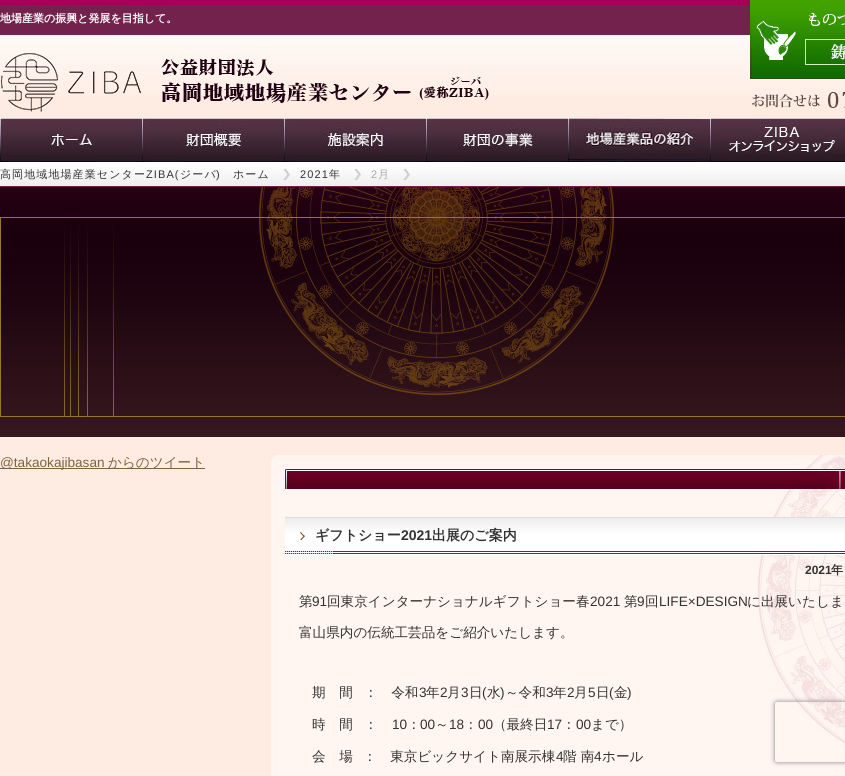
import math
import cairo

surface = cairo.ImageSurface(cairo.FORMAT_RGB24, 845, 776)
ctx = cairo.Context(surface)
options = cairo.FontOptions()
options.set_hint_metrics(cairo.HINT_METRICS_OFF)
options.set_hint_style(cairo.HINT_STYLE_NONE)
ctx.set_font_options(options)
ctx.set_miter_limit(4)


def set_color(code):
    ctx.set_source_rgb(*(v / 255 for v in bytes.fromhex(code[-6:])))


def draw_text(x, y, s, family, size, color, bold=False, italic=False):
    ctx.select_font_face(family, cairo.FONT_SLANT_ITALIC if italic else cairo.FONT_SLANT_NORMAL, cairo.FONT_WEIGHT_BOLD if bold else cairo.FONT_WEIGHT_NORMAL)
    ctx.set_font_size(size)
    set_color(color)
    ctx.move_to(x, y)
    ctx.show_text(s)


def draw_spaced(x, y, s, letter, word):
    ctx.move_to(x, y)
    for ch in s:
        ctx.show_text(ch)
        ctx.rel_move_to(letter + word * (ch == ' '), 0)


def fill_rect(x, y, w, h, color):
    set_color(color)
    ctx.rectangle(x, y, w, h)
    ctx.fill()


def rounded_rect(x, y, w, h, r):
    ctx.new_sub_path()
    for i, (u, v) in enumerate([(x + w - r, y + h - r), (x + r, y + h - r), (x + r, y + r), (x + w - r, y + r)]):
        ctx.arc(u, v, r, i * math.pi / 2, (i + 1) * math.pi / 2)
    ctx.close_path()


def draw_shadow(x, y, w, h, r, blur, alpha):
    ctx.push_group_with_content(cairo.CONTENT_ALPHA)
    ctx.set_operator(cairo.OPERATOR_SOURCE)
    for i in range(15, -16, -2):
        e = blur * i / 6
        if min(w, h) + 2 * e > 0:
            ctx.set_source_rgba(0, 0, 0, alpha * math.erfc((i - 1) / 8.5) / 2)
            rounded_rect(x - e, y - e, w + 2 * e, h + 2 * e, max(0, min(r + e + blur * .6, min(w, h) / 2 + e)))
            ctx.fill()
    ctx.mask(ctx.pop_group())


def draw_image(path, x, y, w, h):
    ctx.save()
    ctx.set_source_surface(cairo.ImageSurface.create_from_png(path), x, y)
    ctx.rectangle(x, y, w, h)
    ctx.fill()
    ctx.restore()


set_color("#feebe1")
ctx.paint()
fill_rect(0, 0, 750, 5, "#a4005b")
draw_image("assets/img1.png", 0, 5, 845, 91)
draw_text(0, 22, "地場産業の振興と発展を目指して。", "WenQuanYi Zen Hei", 11, "#ffffff", bold=True)
draw_image("assets/img2.png", 750, 0, 95, 79)
draw_image("assets/img3.png", 809, 13, 36, 13)
draw_image("assets/img4.png", 805, 39, 40, 26)
draw_image("assets/img5.png", 752, 92, 93, 16)
draw_image("assets/img6.png", 1, 53, 488, 59)
draw_image("assets/img7.png", 838, 118, 7, 44)
draw_image("assets/img8.png", 0, 118, 142, 44)
draw_image("assets/img9.png", 142, 118, 142, 44)
draw_image("assets/img10.png", 284, 118, 142, 44)
draw_image("assets/img11.png", 426, 118, 142, 44)
draw_image("assets/img12.png", 568, 118, 142, 44)
draw_image("assets/img13.png", 710, 118, 128, 44)
draw_image("assets/img14.png", 0, 162, 845, 25)
draw_image("assets/img15.png", 283, 169, 7, 11)
ctx.select_font_face("WenQuanYi Zen Hei Medium")
set_color("#333333")
draw_spaced(0, 178, "高岡地域地場産業センター", 1.1, 0)
ctx.select_font_face("Liberation Sans")
draw_spaced(146, 178, "ZIBA(", 1.1, 0)
ctx.select_font_face("WenQuanYi Zen Hei Medium")
draw_spaced(180, 178, "ジーバ", 1.1, 0)
ctx.select_font_face("Liberation Sans")
draw_spaced(216, 178, ")", 1.1, 0)
ctx.select_font_face("WenQuanYi Zen Hei Medium")
draw_spaced(233, 178, "ホーム", 1.1, 0)
draw_image("assets/img15.png", 354, 169, 7, 11)
ctx.select_font_face("Liberation Sans")
draw_spaced(300, 178, "2021", 1.1, 0)
ctx.select_font_face("WenQuanYi Zen Hei Medium")
draw_spaced(329, 178, "年", 1.1, 0)
draw_image("assets/img15.png", 403, 169, 7, 11)
ctx.select_font_face("Liberation Sans")
set_color("#aaaaaa")
draw_spaced(371, 178, "2", 1.1, 0)
ctx.select_font_face("WenQuanYi Zen Hei Medium")
draw_spaced(378, 178, "月", 1.1, 0)
draw_image("assets/img16.png", 0, 187, 845, 250)
draw_image("assets/img17.png", 0, 217, 845, 200)
fill_rect(0, 468, 205, 1, "#7c653d")
draw_text(0, 467, "@takaokajibasan", "Liberation Sans", 13.6, "#7c653d")
draw_text(108, 467, "からのツイート", "WenQuanYi Zen Hei Medium", 13.6, "#7c653d")
draw_image("assets/img18.png", 270, 454, 575, 322)
draw_image("assets/img19.png", 285, 469, 560, 20)
draw_image("assets/img20.png", 285, 517, 560, 38)
draw_text(315, 540, "ギフトショー", "WenQuanYi Zen Hei", 14, "#333333", bold=True)
draw_text(401, 540, "2021", "Liberation Sans", 14, "#333333", bold=True)
draw_text(432, 540, "出展のご案内", "WenQuanYi Zen Hei", 14, "#333333", bold=True)
draw_text(805, 574, "2021", "Liberation Sans", 12, "#333333", bold=True)
draw_text(831, 574, "年", "WenQuanYi Zen Hei", 12, "#333333", bold=True)
draw_text(299, 606, "第", "WenQuanYi Zen Hei Medium", 13.6, "#333333")
draw_text(312, 606, "91", "Liberation Sans", 13.6, "#333333")
draw_text(327, 606, "回東京インターナショナルギフトショー春", "WenQuanYi Zen Hei Medium", 13.6, "#333333")
draw_text(590, 606, "2021", "Liberation Sans", 13.6, "#333333")
draw_text(624, 606, "第", "WenQuanYi Zen Hei Medium", 13.6, "#333333")
draw_text(637, 606, "9", "Liberation Sans", 13.6, "#333333")
draw_text(645, 606, "回", "WenQuanYi Zen Hei Medium", 13.6, "#333333")
draw_text(659, 606, "LIFE×DESIGN", "Liberation Sans", 13.6, "#333333")
draw_text(747, 606, "に出展いたしま", "WenQuanYi Zen Hei Medium", 13.6, "#333333")
draw_text(299, 637, "富山県内の伝統工芸品をご紹介いたします。", "WenQuanYi Zen Hei Medium", 13.6, "#333333")
draw_text(312, 697, "期　間", "WenQuanYi Zen Hei Medium", 13.6, "#333333")
draw_text(364, 697, "：　令和", "WenQuanYi Zen Hei Medium", 13.6, "#333333")
draw_text(419, 697, "3", "Liberation Sans", 13.6, "#333333")
draw_text(426, 697, "年", "WenQuanYi Zen Hei Medium", 13.6, "#333333")
draw_text(440, 697, "2", "Liberation Sans", 13.6, "#333333")
draw_text(447, 697, "月", "WenQuanYi Zen Hei Medium", 13.6, "#333333")
draw_text(461, 697, "3", "Liberation Sans", 13.6, "#333333")
draw_text(469, 697, "日", "WenQuanYi Zen Hei Medium", 13.6, "#333333")
draw_text(482, 697, "(", "Liberation Sans", 13.6, "#333333")
draw_text(487, 697, "水", "WenQuanYi Zen Hei Medium", 13.6, "#333333")
draw_text(500, 697, ")", "Liberation Sans", 13.6, "#333333")
draw_text(505, 697, "～令和", "WenQuanYi Zen Hei Medium", 13.6, "#333333")
draw_text(546, 697, "3", "Liberation Sans", 13.6, "#333333")
draw_text(553, 697, "年", "WenQuanYi Zen Hei Medium", 13.6, "#333333")
draw_text(567, 697, "2", "Liberation Sans", 13.6, "#333333")
draw_text(574, 697, "月", "WenQuanYi Zen Hei Medium", 13.6, "#333333")
draw_text(588, 697, "5", "Liberation Sans", 13.6, "#333333")
draw_text(596, 697, "日", "WenQuanYi Zen Hei Medium", 13.6, "#333333")
draw_text(609, 697, "(", "Liberation Sans", 13.6, "#333333")
draw_text(614, 697, "金", "WenQuanYi Zen Hei Medium", 13.6, "#333333")
draw_text(627, 697, ")", "Liberation Sans", 13.6, "#333333")
draw_text(312, 729, "時　間", "WenQuanYi Zen Hei Medium", 13.6, "#333333")
draw_text(364, 729, "：", "WenQuanYi Zen Hei Medium", 13.6, "#333333")
draw_text(392, 729, "10", "Liberation Sans", 13.6, "#333333")
draw_text(407, 729, "：", "WenQuanYi Zen Hei Medium", 13.6, "#333333")
draw_text(420, 729, "00", "Liberation Sans", 13.6, "#333333")
draw_text(435, 729, "～", "WenQuanYi Zen Hei Medium", 13.6, "#333333")
draw_text(449, 729, "18", "Liberation Sans", 13.6, "#333333")
draw_text(464, 729, "：", "WenQuanYi Zen Hei Medium", 13.6, "#333333")
draw_text(478, 729, "00", "Liberation Sans", 13.6, "#333333")
draw_text(493, 729, "（最終日", "WenQuanYi Zen Hei Medium", 13.6, "#333333")
draw_text(547, 729, "17", "Liberation Sans", 13.6, "#333333")
draw_text(562, 729, "：", "WenQuanYi Zen Hei Medium", 13.6, "#333333")
draw_text(576, 729, "00", "Liberation Sans", 13.6, "#333333")
draw_text(591, 729, "まで）", "WenQuanYi Zen Hei Medium", 13.6, "#333333")
draw_text(312, 761, "会　場", "WenQuanYi Zen Hei Medium", 13.6, "#333333")
draw_text(363, 761, "：　東京ビックサイト南展示棟", "WenQuanYi Zen Hei Medium", 13.6, "#333333")
draw_text(556, 761, "4", "Liberation Sans", 13.6, "#333333")
draw_text(563, 761, "階 南", "WenQuanYi Zen Hei Medium", 13.6, "#333333")
draw_text(594, 761, "4", "Liberation Sans", 13.6, "#333333")
draw_text(602, 761, "ホール", "WenQuanYi Zen Hei Medium", 13.6, "#333333")
ctx.save()
ctx.set_fill_rule(cairo.FILL_RULE_EVEN_ODD)
ctx.new_path()
ctx.move_to(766, 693)
ctx.line_to(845, 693)
ctx.line_to(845, 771)
ctx.line_to(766, 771)
ctx.close_path()
ctx.move_to(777, 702)
ctx.line_to(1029, 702)
ctx.curve_to(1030, 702, 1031, 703, 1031, 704)
ctx.line_to(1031, 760)
ctx.curve_to(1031, 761, 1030, 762, 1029, 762)
ctx.line_to(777, 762)
ctx.curve_to(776, 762, 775, 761, 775, 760)
ctx.line_to(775, 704)
ctx.curve_to(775, 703, 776, 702, 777, 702)
ctx.close_path()
ctx.clip()
set_color("#808080")
draw_shadow(775, 702, 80, 60, 2, 2.5, 1)
ctx.restore()
surface.write_to_png("output.png")
